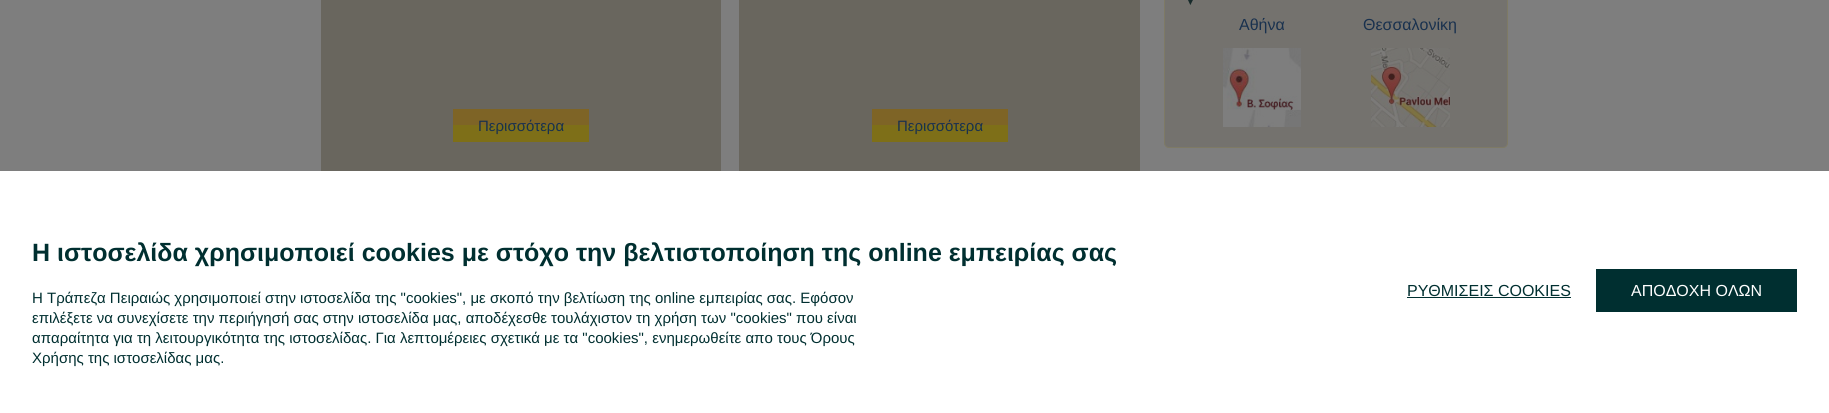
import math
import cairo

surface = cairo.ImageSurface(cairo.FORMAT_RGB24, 1829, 413)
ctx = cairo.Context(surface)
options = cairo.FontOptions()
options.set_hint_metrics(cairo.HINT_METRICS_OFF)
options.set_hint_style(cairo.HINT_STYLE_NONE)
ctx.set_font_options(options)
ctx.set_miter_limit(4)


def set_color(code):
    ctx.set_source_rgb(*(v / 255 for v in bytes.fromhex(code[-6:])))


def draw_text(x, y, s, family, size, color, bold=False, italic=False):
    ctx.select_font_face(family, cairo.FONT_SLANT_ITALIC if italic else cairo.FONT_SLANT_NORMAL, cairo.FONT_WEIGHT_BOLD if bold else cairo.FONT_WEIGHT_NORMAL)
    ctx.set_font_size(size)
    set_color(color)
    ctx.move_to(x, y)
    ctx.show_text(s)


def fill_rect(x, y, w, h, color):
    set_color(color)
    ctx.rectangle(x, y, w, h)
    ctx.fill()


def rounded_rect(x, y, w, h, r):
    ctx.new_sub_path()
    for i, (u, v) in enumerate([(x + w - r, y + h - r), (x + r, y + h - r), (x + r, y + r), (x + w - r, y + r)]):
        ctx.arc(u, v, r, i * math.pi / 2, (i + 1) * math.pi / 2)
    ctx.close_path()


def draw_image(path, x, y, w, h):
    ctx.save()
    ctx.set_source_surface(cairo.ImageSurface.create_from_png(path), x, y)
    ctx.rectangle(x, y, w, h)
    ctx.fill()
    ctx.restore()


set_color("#7e7e7e")
ctx.paint()
set_color("#74726e")
rounded_rect(1164.5, -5.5, 343, 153, 4.5)
ctx.fill_preserve()
set_color("#7e7a65")
ctx.set_line_width(1)
ctx.stroke()
draw_image("assets/img1.png", 1188, 0, 5, 5)
draw_text(1239, 30, "Αθήνα", "Liberation Sans", 16, "#19314e")
draw_image("assets/img2.png", 1223, 48, 78, 79)
draw_text(1363, 30, "Θεσσαλονίκη", "Liberation Sans", 16, "#19314e")
draw_image("assets/img3.png", 1371, 48, 79, 79)
fill_rect(321, 0, 400, 171, "#69665e")
fill_rect(453, 109, 136, 16, "#7e6426")
fill_rect(453, 125, 136, 17, "#7e6f18")
draw_text(478, 131, "Περισσότερα", "Liberation Sans", 15, "#19314e")
fill_rect(739, 0, 401, 171, "#69665e")
fill_rect(872, 109, 136, 16, "#7e6426")
fill_rect(872, 125, 136, 17, "#7e6f18")
draw_text(897, 131, "Περισσότερα", "Liberation Sans", 15, "#19314e")
fill_rect(0, 171, 1829, 242, "#ffffff")
draw_text(32, 261, "Η ιστοσελίδα χρησιμοποιεί cookies με στόχο την βελτιστοποίηση της online εμπειρίας σας", "Liberation Sans", 25, "#002f30", bold=True)
draw_text(32, 303, "Η Τράπεζα Πειραιώς χρησιμοποιεί στην ιστοσελίδα της \"cookies\", με σκοπό την βελτίωση της online εμπειρίας σας. Εφόσον", "Liberation Sans", 15, "#002f30")
draw_text(32, 323, "επιλέξετε να συνεχίσετε την περιήγησή σας στην ιστοσελίδα μας, αποδέχεσθε τουλάχιστον τη χρήση των \"cookies\" που είναι", "Liberation Sans", 15, "#002f30")
draw_text(32, 343, "απαραίτητα για τη λειτουργικότητα της ιστοσελίδας. Για λεπτομέρειες σχετικά με τα \"cookies\", ενημερωθείτε απο τους Όρους", "Liberation Sans", 15, "#002f30")
draw_text(32, 363, "Χρήσης της ιστοσελίδας μας.", "Liberation Sans", 15, "#002f30")
draw_text(1407, 296, "ΡΥΘΜΙΣΕΙΣ COOKIES", "Liberation Sans", 16, "#002f30")
fill_rect(1407, 297, 164, 1, "#002f30")
fill_rect(1596, 269, 201, 43, "#002f30")
draw_text(1631, 296, "ΑΠΟΔΟΧΗ ΟΛΩΝ", "Liberation Sans", 16, "#ffffff")
surface.write_to_png("output.png")
